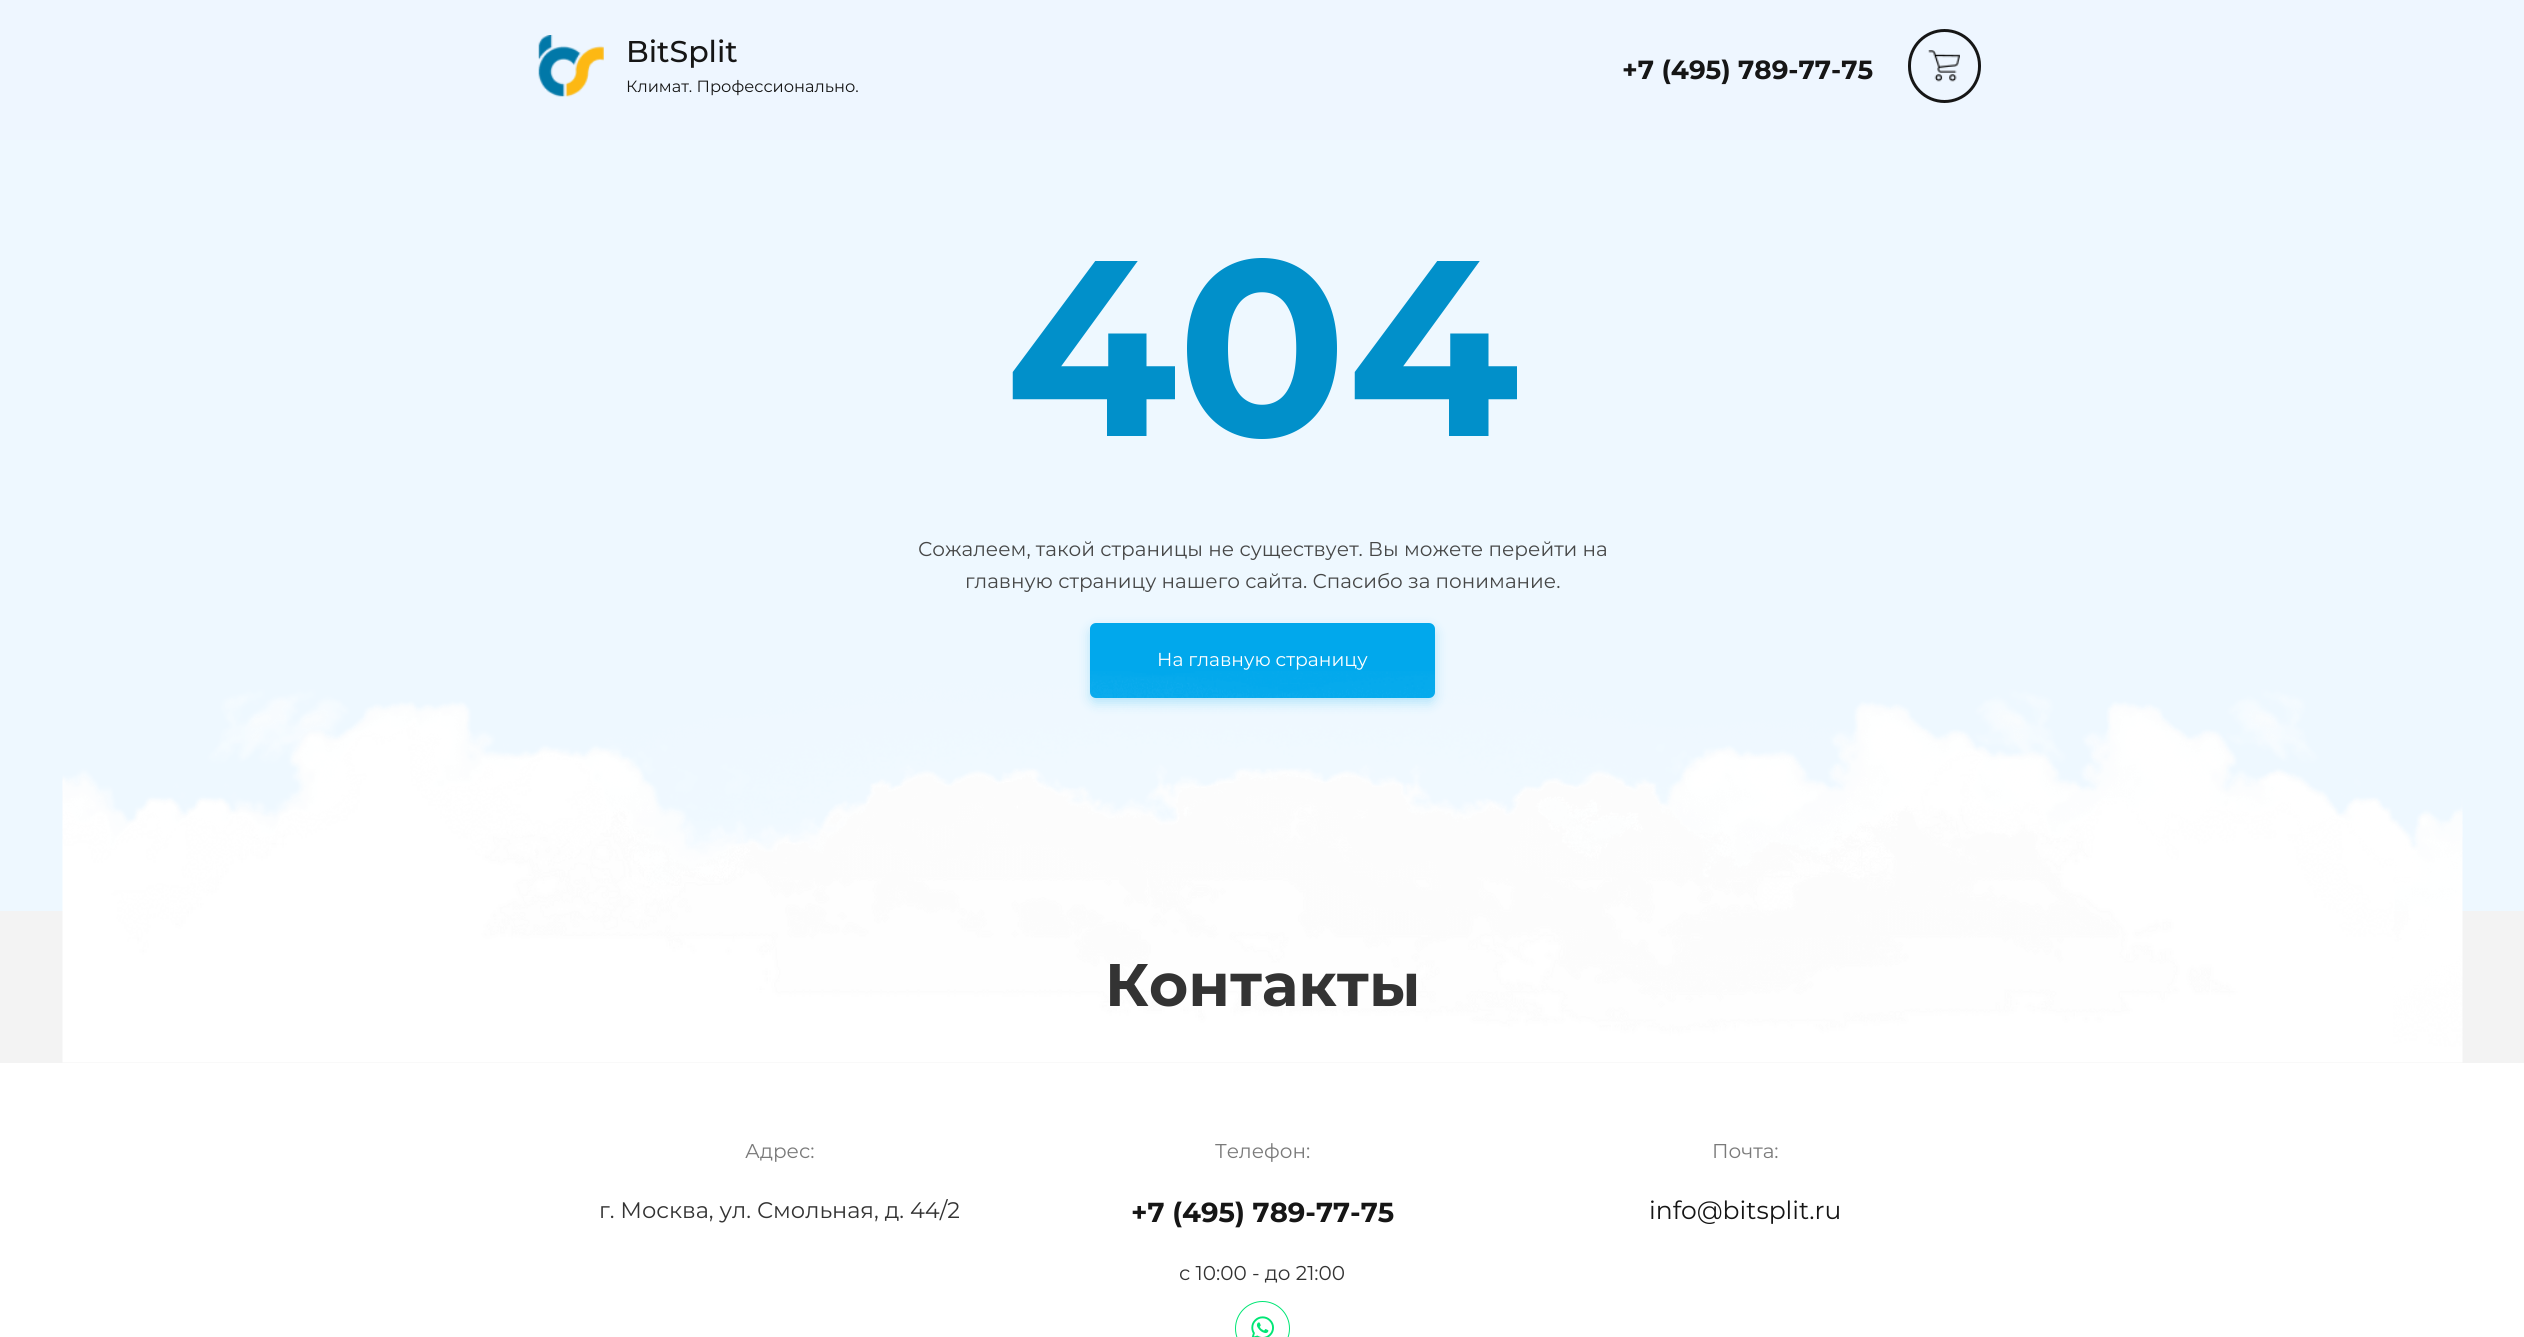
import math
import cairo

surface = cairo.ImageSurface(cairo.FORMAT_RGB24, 2524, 1337)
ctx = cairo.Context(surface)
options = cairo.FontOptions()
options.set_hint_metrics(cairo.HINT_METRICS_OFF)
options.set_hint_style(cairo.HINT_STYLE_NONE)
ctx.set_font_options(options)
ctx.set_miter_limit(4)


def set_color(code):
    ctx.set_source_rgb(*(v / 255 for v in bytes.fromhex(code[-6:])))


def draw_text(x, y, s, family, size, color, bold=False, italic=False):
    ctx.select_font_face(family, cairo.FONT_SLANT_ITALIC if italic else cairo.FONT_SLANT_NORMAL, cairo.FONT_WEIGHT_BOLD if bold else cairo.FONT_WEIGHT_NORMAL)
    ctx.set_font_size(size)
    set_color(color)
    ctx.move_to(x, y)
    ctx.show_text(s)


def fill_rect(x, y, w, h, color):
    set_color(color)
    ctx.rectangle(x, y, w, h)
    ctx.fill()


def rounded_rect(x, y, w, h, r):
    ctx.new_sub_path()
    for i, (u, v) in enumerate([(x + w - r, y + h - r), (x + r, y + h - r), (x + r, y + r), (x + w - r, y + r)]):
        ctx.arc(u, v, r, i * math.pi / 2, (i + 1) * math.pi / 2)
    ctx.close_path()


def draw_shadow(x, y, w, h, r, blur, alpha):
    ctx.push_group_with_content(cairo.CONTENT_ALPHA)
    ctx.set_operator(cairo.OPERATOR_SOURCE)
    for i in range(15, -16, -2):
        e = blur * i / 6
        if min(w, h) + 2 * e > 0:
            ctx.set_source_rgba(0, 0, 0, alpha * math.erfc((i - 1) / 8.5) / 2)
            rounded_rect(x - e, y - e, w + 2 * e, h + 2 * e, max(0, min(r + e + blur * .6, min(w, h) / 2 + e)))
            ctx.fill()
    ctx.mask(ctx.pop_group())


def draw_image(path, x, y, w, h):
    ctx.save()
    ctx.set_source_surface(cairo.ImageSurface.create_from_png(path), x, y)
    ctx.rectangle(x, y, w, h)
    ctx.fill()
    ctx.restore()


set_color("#ffffff")
ctx.paint()
fill_rect(0, 0, 2524, 140, "#eef6ff")
draw_image("assets/img1.png", 538, 35, 66, 62)
draw_text(626, 62, "BitSplit", "Montserrat Medium", 30, "#161616")
rounded_rect(1909.5, 30.5, 70, 71, 35)
ctx.set_line_width(3)
ctx.stroke()
draw_image("assets/img2.png", 1928, 50, 32, 32)
draw_text(1622, 79, "+7 (495) 789-77-75", "Montserrat", 26.25, "#161616", bold=True)
draw_text(626, 92, "Климат. Профессионально.", "Montserrat", 16.25, "#161616")
fill_rect(0, 140, 2524, 771, "#eef8ff")
draw_text(1005, 436, "404", "Montserrat", 250, "#0190ca", bold=True)
draw_text(918, 556, "Сожалеем, такой страницы не существует. Вы можете перейти на", "Montserrat", 20, "#464747")
draw_text(965, 588, "главную страницу нашего сайта. Спасибо за понимание.", "Montserrat", 20, "#464747")
set_color("#01a8ec")
draw_shadow(1090, 628, 345, 75, 6, 6, 0.26)
set_color("#01a8ec")
rounded_rect(1090, 623, 345, 75, 6)
ctx.fill()
draw_text(1157, 666, "На главную страницу", "Montserrat", 18.75, "#ffffff")
fill_rect(0, 911, 2524, 152, "#f3f3f3")
draw_image("assets/img3.png", 62, 671, 2401, 392)
draw_text(1105, 1006, "Контакты", "Montserrat", 60, "#333333", bold=True)
draw_text(745, 1158, "Адрес:", "Montserrat", 20, "#7a7a7a")
draw_text(599, 1218, "г. Москва, ул. Смольная, д. 44/2", "Montserrat", 22.5, "#333333")
draw_text(1215, 1158, "Телефон:", "Montserrat", 20, "#7a7a7a")
draw_text(1131, 1222, "+7 (495) 789-77-75", "Montserrat", 27.5, "#161616", bold=True)
draw_text(1179, 1280, "с 10:00 - до 21:00", "Montserrat", 20, "#333333")
ctx.new_path()
ctx.arc(1262.5, 1328.5, 27, 0, 2 * math.pi)
set_color("#01e675")
ctx.set_line_width(1)
ctx.stroke()
draw_image("assets/img4.png", 1251, 1316, 23, 21)
draw_text(1712, 1158, "Почта:", "Montserrat", 20, "#7a7a7a")
draw_text(1649, 1219, "info@bitsplit.ru", "Montserrat", 25, "#161616")
surface.write_to_png("output.png")
